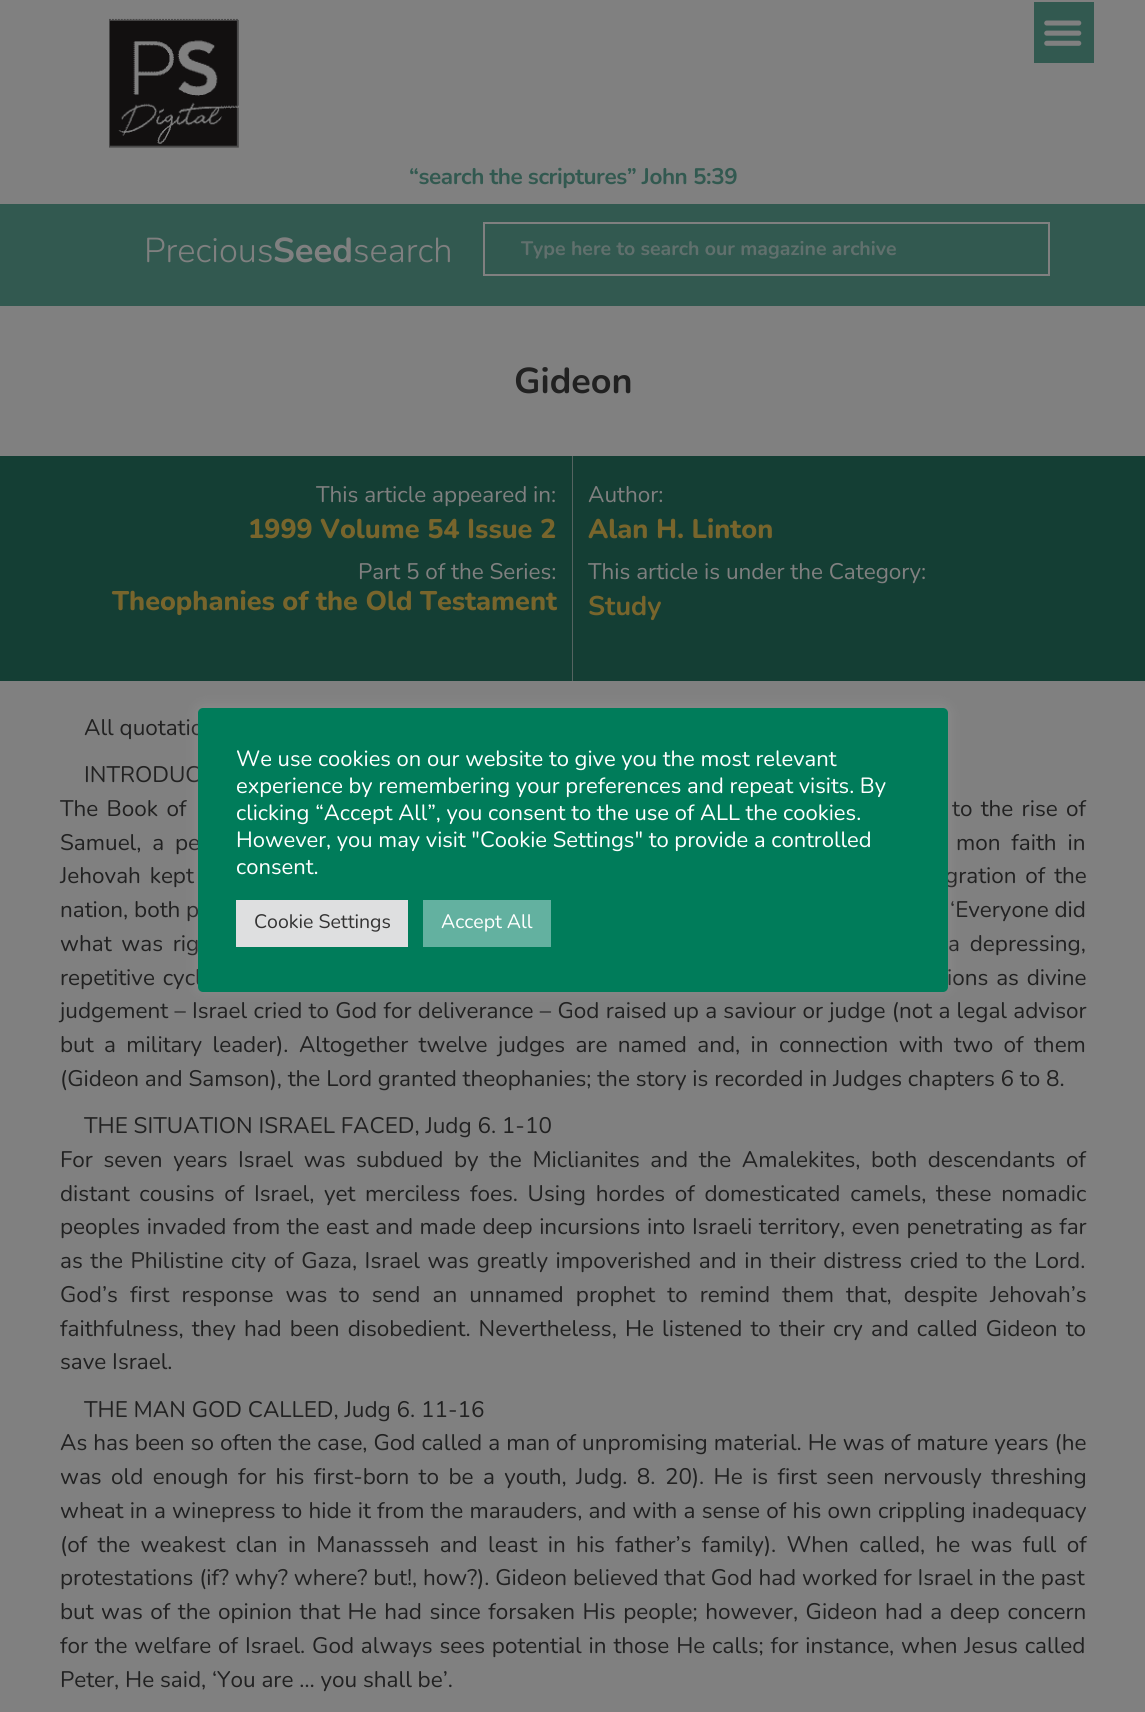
import math
import cairo

surface = cairo.ImageSurface(cairo.FORMAT_RGB24, 1145, 1712)
ctx = cairo.Context(surface)
options = cairo.FontOptions()
options.set_hint_metrics(cairo.HINT_METRICS_OFF)
options.set_hint_style(cairo.HINT_STYLE_NONE)
ctx.set_font_options(options)
ctx.set_miter_limit(4)


def set_color(code):
    ctx.set_source_rgb(*(v / 255 for v in bytes.fromhex(code[-6:])))


def draw_text(x, y, s, family, size, color, bold=False, italic=False):
    ctx.select_font_face(family, cairo.FONT_SLANT_ITALIC if italic else cairo.FONT_SLANT_NORMAL, cairo.FONT_WEIGHT_BOLD if bold else cairo.FONT_WEIGHT_NORMAL)
    ctx.set_font_size(size)
    set_color(color)
    ctx.move_to(x, y)
    ctx.show_text(s)


def draw_spaced(x, y, s, letter, word):
    ctx.move_to(x, y)
    for ch in s:
        ctx.show_text(ch)
        ctx.rel_move_to(letter + word * (ch == ' '), 0)


def fill_rect(x, y, w, h, color):
    set_color(color)
    ctx.rectangle(x, y, w, h)
    ctx.fill()


def rounded_rect(x, y, w, h, r):
    ctx.new_sub_path()
    for i, (u, v) in enumerate([(x + w - r, y + h - r), (x + r, y + h - r), (x + r, y + r), (x + w - r, y + r)]):
        ctx.arc(u, v, r, i * math.pi / 2, (i + 1) * math.pi / 2)
    ctx.close_path()


def draw_shadow(x, y, w, h, r, blur, alpha):
    ctx.push_group_with_content(cairo.CONTENT_ALPHA)
    ctx.set_operator(cairo.OPERATOR_SOURCE)
    for i in range(15, -16, -2):
        e = blur * i / 6
        if min(w, h) + 2 * e > 0:
            ctx.set_source_rgba(0, 0, 0, alpha * math.erfc((i - 1) / 8.5) / 2)
            rounded_rect(x - e, y - e, w + 2 * e, h + 2 * e, max(0, min(r + e + blur * .6, min(w, h) / 2 + e)))
            ctx.fill()
    ctx.mask(ctx.pop_group())


def draw_image(path, x, y, w, h):
    ctx.save()
    ctx.set_source_surface(cairo.ImageSurface.create_from_png(path), x, y)
    ctx.rectangle(x, y, w, h)
    ctx.fill()
    ctx.restore()


set_color("#808080")
ctx.paint()
draw_image("assets/img1.png", 109, 18, 130, 130)
fill_rect(1034, 2, 60, 61, "#325950")
draw_image("assets/img2.png", 1044, 20, 38, 26)
ctx.select_font_face("Nunito", cairo.FONT_SLANT_NORMAL, cairo.FONT_WEIGHT_BOLD)
ctx.set_font_size(22.5)
draw_spaced(409, 184, "“search the scriptures” John 5:39", -0.45, 0)
fill_rect(0, 204, 1145, 102, "#325950")
draw_text(144, 262, "Precious", "Nunito Light", 34.5, "#808080")
draw_text(273, 262, "Seed", "Nunito", 34.5, "#808080", bold=True)
draw_text(353, 262, "search", "Nunito Light", 34.5, "#808080")
ctx.rectangle(484, 223, 565, 52)
ctx.stroke()
draw_text(521, 255, "Type here to search our magazine archive", "Nunito", 19.5, "#61706d", bold=True)
draw_text(514, 393, "Gideon", "Nunito", 36, "#212121", bold=True)
fill_rect(0, 456, 1145, 225, "#143e34")
ctx.set_source_rgba(0.478, 0.478, 0.478, 0.64)
ctx.rectangle(572, 456, 1, 225)
ctx.fill()
draw_text(316, 502, "This article appeared in:", "Nunito", 22.5, "#808080")
draw_text(248, 538, "1999 Volume 54 Issue 2", "Nunito ExtraBold", 27, "#78652c")
draw_text(358, 579, "Part 5 of the Series:", "Nunito", 22.5, "#808080")
draw_text(112, 610, "Theophanies of the Old Testament", "Nunito ExtraBold", 27, "#78652c")
draw_text(588, 502, "Author:", "Nunito", 22.5, "#808080")
draw_text(588, 538, "Alan H. Linton", "Nunito ExtraBold", 27, "#78652c")
draw_text(588, 579, "This article is under the Category:", "Nunito", 22.5, "#808080")
draw_text(588, 615, "Study", "Nunito", 27, "#78652c", bold=True)
draw_text(84, 735, "All quotatio", "Nunito", 22.5, "#212121")
draw_text(84, 782, "INTRODUC", "Nunito", 22.5, "#212121")
draw_spaced(60, 816, "The Book of", 0, 2.5)
draw_spaced(952, 816, "to the rise of", 0, 2.5)
draw_spaced(60, 850, "Samuel, a pe", 0, 5)
draw_spaced(956, 850, "mon faith in", 0, 5)
draw_spaced(60, 883, "Jehovah kept", 0, 3)
draw_spaced(945, 883, "gration of the", 0, 3)
draw_text(60, 917, "nation, both p", "Nunito", 22.5, "#212121")
draw_text(950, 917, "‘Everyone did", "Nunito", 22.5, "#212121")
draw_spaced(60, 951, "what was rig", 0, 4)
draw_spaced(948, 951, "a depressing,", 0, 4)
draw_spaced(60, 985, "repetitive cycl", 0, 2)
draw_spaced(947, 985, "ions as divine", 0, 2)
draw_spaced(60, 1018, "judgement – Israel cried to God for deliverance – God raised up a saviour or judge (not a legal advisor", 0, 0.5)
draw_spaced(60, 1052, "but a military leader). Altogether twelve judges are named and, in connection with two of them", 0, 4.6)
draw_text(60, 1086, "(Gideon and Samson), the Lord granted theophanies; the story is recorded in Judges chapters 6 to 8.", "Nunito", 22.5, "#212121")
draw_text(84, 1133, "THE SITUATION ISRAEL FACED, Judg 6. 1-10", "Nunito", 22.5, "#212121")
draw_spaced(60, 1167, "For seven years Israel was subdued by the Miclianites and the Amalekites, both descendants of", 0, 4.75)
draw_spaced(60, 1201, "distant cousins of Israel, yet merciless foes. Using hordes of domesticated camels, these nomadic", 0, 3.9)
draw_spaced(60, 1234, "peoples invaded from the east and made deep incursions into Israeli territory, even penetrating as far", 0, 0.75)
draw_spaced(60, 1268, "as the Philistine city of Gaza, Israel was greatly impoverished and in their distress cried to the Lord.", 0, 1.8)
draw_spaced(60, 1302, "God’s first response was to send an unnamed prophet to remind them that, despite Jehovah’s", 0, 6.25)
draw_spaced(60, 1336, "faithfulness, they had been disobedient. Nevertheless, He listened to their cry and called Gideon to", 0, 2.25)
draw_text(60, 1369, "save Israel.", "Nunito", 22.5, "#212121")
draw_text(84, 1417, "THE MAN GOD CALLED, Judg 6. 11-16", "Nunito", 22.5, "#212121")
draw_spaced(60, 1450, "As has been so often the case, God called a man of unpromising material. He was of mature years (he", 0, 0.2)
draw_spaced(60, 1484, "was old enough for his first-born to be a youth, Judg. 8. 20). He is first seen nervously threshing", 0, 3.6)
draw_spaced(60, 1518, "wheat in a winepress to hide it from the marauders, and with a sense of his own crippling inadequacy", 0, 0.4)
draw_spaced(60, 1552, "(of the weakest clan in Manassseh and least in his father’s family). When called, he was full of", 0, 4.6)
draw_text(60, 1585, "protestations (if? why? where? but!, how?). Gideon believed that God had worked for Israel in the past", "Nunito", 22.5, "#212121")
draw_spaced(60, 1619, "but was of the opinion that He had since forsaken His people; however, Gideon had a deep concern", 0, 1.7)
draw_spaced(60, 1653, "for the welfare of Israel. God always sees potential in those He calls; for instance, when Jesus called", 0, 1)
draw_text(60, 1687, "Peter, He said, ‘You are … you shall be’.", "Nunito", 22.5, "#212121")
set_color("#acabab")
draw_shadow(198, 707, 750, 283, 5, 7.5, 0.3)
set_color("#007c5a")
rounded_rect(198, 708, 750, 284, 5)
ctx.fill()
draw_text(236, 766, "We use cookies on our website to give you the most relevant", "Nunito", 22, "#ffffff")
draw_text(236, 793, "experience by remembering your preferences and repeat visits. By", "Nunito", 22, "#ffffff")
draw_text(236, 820, "clicking “Accept All”, you consent to the use of ALL the cookies.", "Nunito", 22, "#ffffff")
draw_text(236, 847, "However, you may visit \"Cookie Settings\" to provide a controlled", "Nunito", 22, "#ffffff")
draw_text(236, 874, "consent.", "Nunito", 22, "#ffffff")
fill_rect(236, 900, 172, 47, "#dedfe0")
draw_text(254, 928, "Cookie Settings", "Nunito", 19.5, "#333333")
fill_rect(423, 900, 128, 47, "#63b1a0")
draw_text(441, 928, "Accept All", "Nunito", 19.5, "#ffffff")
surface.write_to_png("output.png")
